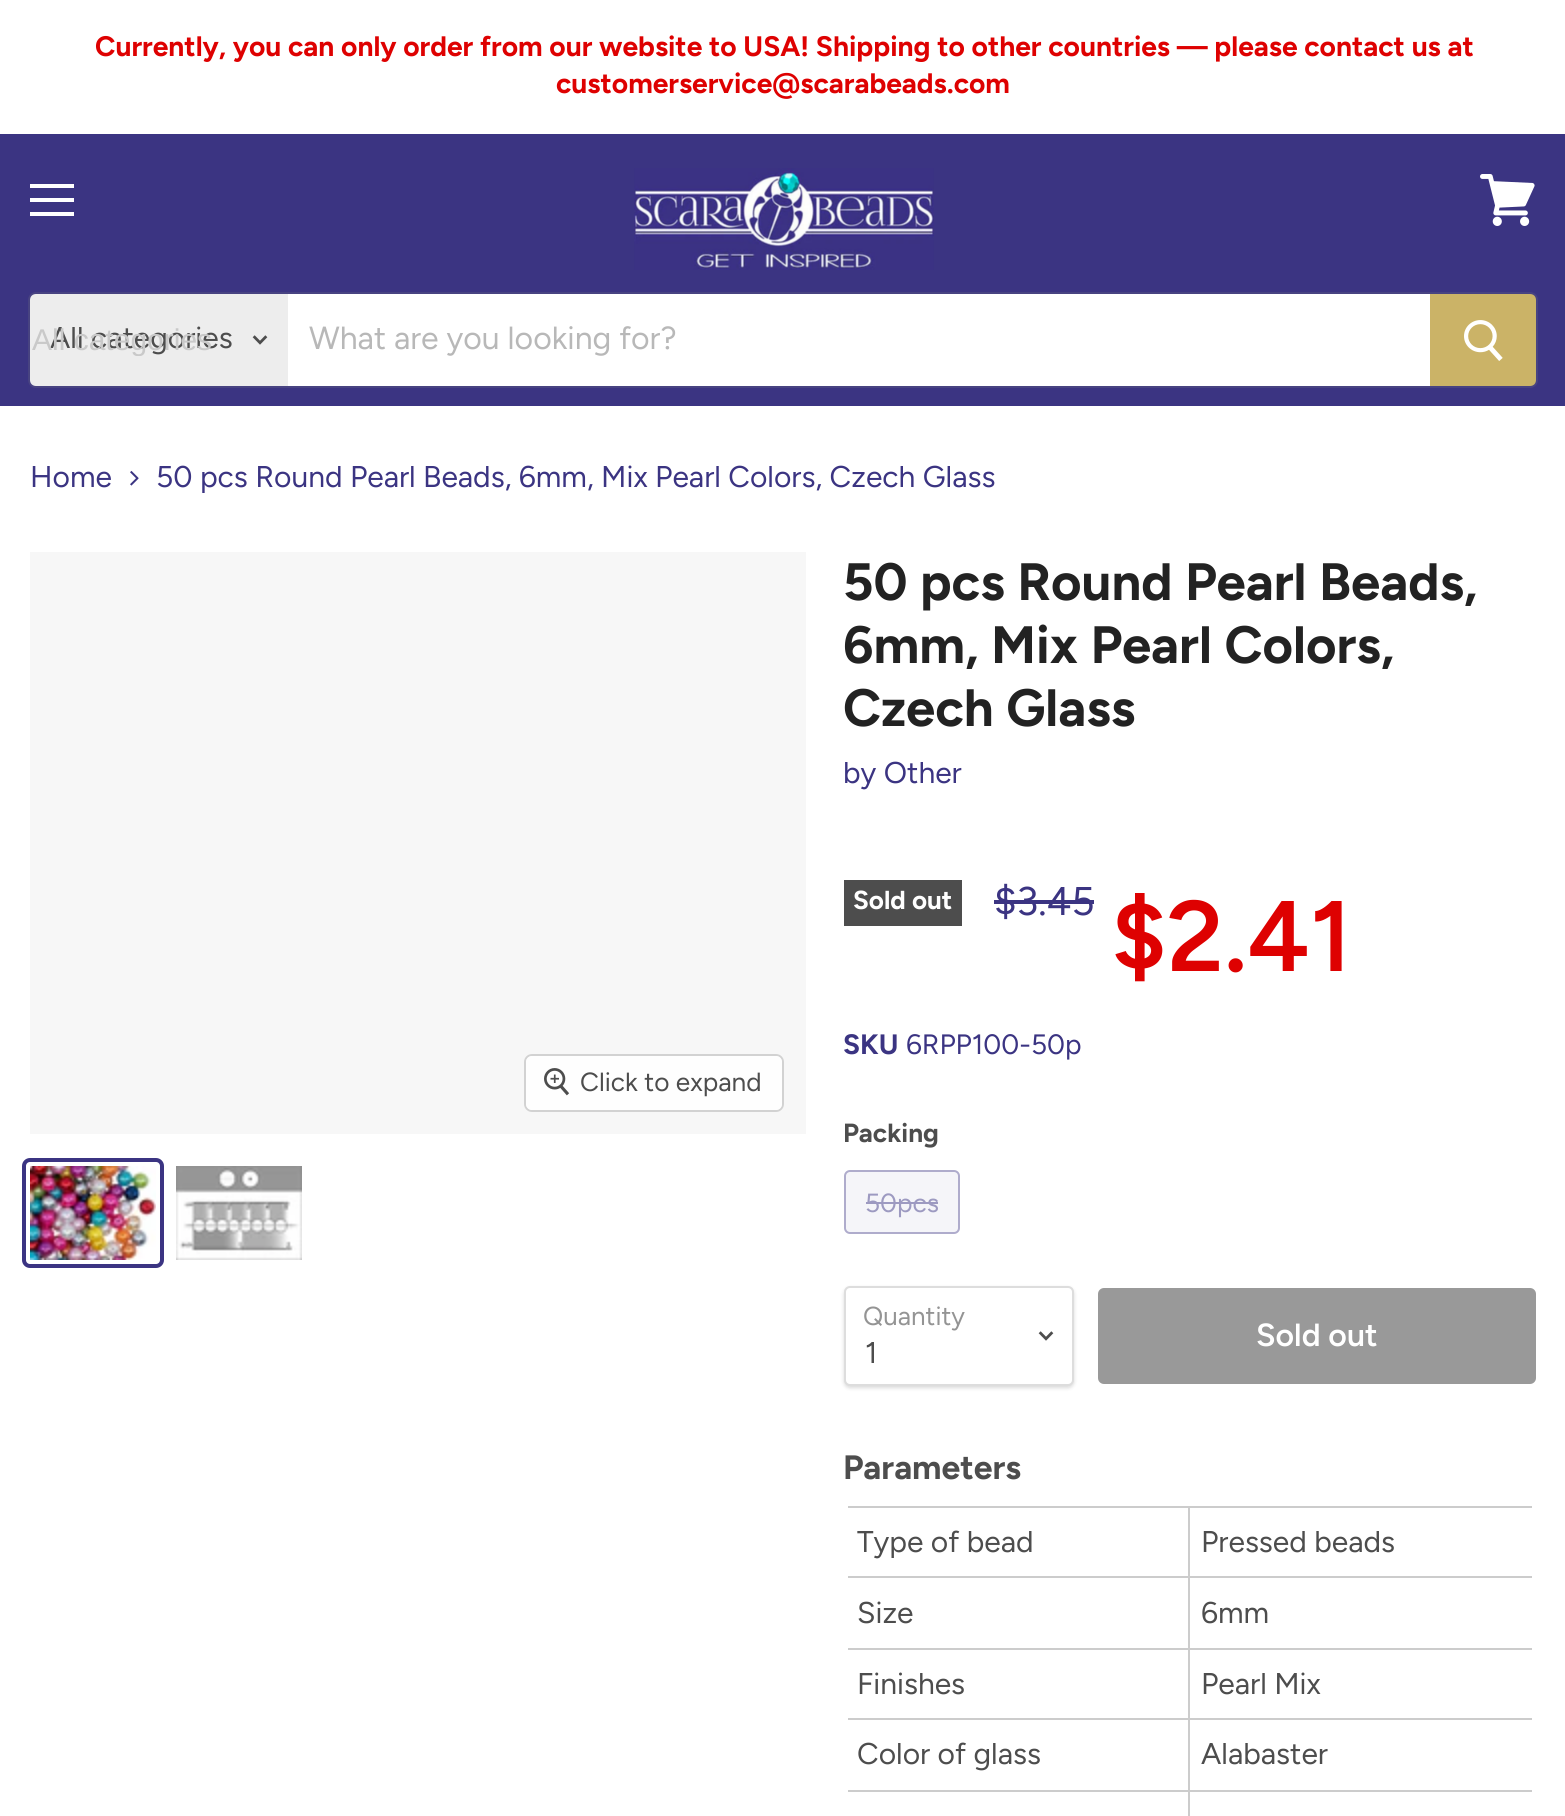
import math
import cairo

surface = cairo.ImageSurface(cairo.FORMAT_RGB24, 1565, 1816)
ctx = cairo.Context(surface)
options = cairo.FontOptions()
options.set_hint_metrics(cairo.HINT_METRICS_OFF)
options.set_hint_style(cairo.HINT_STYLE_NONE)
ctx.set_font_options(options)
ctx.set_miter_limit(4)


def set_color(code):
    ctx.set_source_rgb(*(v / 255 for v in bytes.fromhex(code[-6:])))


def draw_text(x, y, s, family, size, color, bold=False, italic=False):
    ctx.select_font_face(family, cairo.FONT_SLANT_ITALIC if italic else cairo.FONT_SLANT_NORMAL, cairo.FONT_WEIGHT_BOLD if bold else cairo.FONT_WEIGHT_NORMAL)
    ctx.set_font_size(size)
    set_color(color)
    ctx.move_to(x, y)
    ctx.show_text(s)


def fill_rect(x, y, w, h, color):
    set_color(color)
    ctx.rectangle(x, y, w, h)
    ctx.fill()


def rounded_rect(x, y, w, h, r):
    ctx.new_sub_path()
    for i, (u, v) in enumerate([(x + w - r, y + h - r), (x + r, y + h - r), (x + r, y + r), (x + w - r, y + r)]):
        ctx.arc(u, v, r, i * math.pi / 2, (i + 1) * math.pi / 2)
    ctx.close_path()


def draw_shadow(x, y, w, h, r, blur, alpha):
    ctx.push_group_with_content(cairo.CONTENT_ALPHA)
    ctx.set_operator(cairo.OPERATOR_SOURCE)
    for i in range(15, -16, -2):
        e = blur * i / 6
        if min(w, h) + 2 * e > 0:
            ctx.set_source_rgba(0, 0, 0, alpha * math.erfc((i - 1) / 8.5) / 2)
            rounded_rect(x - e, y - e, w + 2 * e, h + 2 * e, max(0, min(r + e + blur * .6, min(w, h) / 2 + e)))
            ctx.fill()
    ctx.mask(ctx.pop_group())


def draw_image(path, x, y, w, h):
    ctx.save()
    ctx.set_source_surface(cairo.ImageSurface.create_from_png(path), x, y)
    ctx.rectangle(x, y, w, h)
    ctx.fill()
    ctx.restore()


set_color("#ffffff")
ctx.paint()
draw_text(95, 56, "Currently, you can only order from our website to USA! Shipping to other countries — please contact us at", "Figtree", 28.15, "#de0101", bold=True)
draw_text(556, 93, "customerservice@scarabeads.com", "Figtree", 28.15, "#de0101", bold=True)
fill_rect(0, 134, 1565, 272, "#3b3482")
fill_rect(30, 184, 44, 4, "#ffffff")
fill_rect(30, 198, 44, 4, "#ffffff")
fill_rect(30, 212, 44, 4, "#ffffff")
draw_image("assets/img1.png", 1480, 174, 55, 52)
draw_image("assets/img2.png", 634, 168, 300, 102)
rounded_rect(29, 293, 1508, 94, 7)
ctx.set_source_rgba(0.498, 0.498, 0.498, 0.2)
ctx.stroke()
set_color("#ededed")
ctx.new_path()
ctx.move_to(36, 294)
ctx.line_to(288, 294)
ctx.line_to(288, 386)
ctx.line_to(36, 386)
ctx.curve_to(32.5, 386, 30, 383.5, 30, 380)
ctx.line_to(30, 300)
ctx.curve_to(30, 296.5, 32.5, 294, 36, 294)
ctx.close_path()
ctx.fill()
draw_text(50, 348, "All categories", "Figtree", 30, "#4d4d4d")
ctx.save()
ctx.rectangle(32, 322, 254, 34)
ctx.clip()
draw_text(32, 350, "All categories", "Liberation Sans", 30, "#c9c9c9")
ctx.restore()
draw_image("assets/img3.png", 252, 335, 16, 10)
fill_rect(288, 294, 1142, 92, "#ffffff")
draw_text(309, 349, "What are you looking for?", "Figtree", 32, "#b8b8b8")
set_color("#cbb367")
ctx.new_path()
ctx.move_to(1431, 295)
ctx.line_to(1530, 295)
ctx.curve_to(1533, 295, 1535, 297, 1535, 300)
ctx.line_to(1535, 380)
ctx.curve_to(1535, 383, 1533, 385, 1530, 385)
ctx.line_to(1431, 385)
ctx.close_path()
ctx.fill_preserve()
ctx.stroke()
draw_image("assets/img4.png", 1464, 320, 39, 41)
draw_text(30, 487, "Home", "Figtree", 30, "#3b3482")
draw_image("assets/img5.png", 130, 470, 9, 16)
draw_text(156, 487, "50 pcs Round Pearl Beads, 6mm, Mix Pearl Colors, Czech Glass", "Figtree", 30, "#3b3482")
fill_rect(30, 552, 776, 582, "#f7f7f7")
rounded_rect(525, 1055, 258, 56, 7)
set_color("#d2d2d2")
ctx.stroke()
ctx.set_source_rgba(1, 1, 1, 0.9)
rounded_rect(526, 1056, 256, 54, 6)
ctx.fill()
draw_image("assets/img6.png", 544, 1068, 26, 28)
draw_text(580, 1091, "Click to expand", "Figtree", 26.25, "#4d4d4d")
rounded_rect(24, 1160, 138, 106, 6)
set_color("#3b3482")
ctx.set_line_width(4)
ctx.stroke()
draw_image("assets/img7.png", 30, 1166, 126, 94)
draw_image("assets/img8.png", 176, 1166, 126, 94)
draw_text(843, 600, "50 pcs Round Pearl Beads,", "Figtree", 52.5, "#222222", bold=True)
draw_text(843, 663, "6mm, Mix Pearl Colors,", "Figtree", 52.5, "#222222", bold=True)
draw_text(843, 726, "Czech Glass", "Figtree", 52.5, "#222222", bold=True)
draw_text(843, 783, "by Other", "Figtree", 30, "#3b3482")
fill_rect(844, 880, 118, 46, "#4d4d4d")
draw_text(853, 909, "Sold out", "Figtree", 26, "#ffffff", bold=True)
draw_text(994, 915, "$3.45", "Figtree", 40, "#3b3482")
fill_rect(994, 900, 100, 4, "#3b3482")
draw_text(1111, 971, "$2.41", "Figtree SemiBold", 100, "#de0101")
draw_text(843, 1054, "SKU", "Figtree", 28, "#3b3482", bold=True)
draw_text(906, 1054, "6RPP100-50p", "Figtree", 28, "#3b3482")
draw_text(843, 1142, "Packing", "Figtree", 26.25, "#4d4d4d", bold=True)
set_color("#f5f5f9")
rounded_rect(845, 1171, 114, 62, 5)
ctx.fill_preserve()
set_color("#afaccc")
ctx.set_line_width(2)
ctx.stroke()
draw_text(865, 1212, "50pcs", "Figtree", 26.25, "#9d9ac1")
fill_rect(866, 1202, 72, 2, "#9d9ac1")
set_color("#000000")
draw_shadow(844, 1288, 230, 100, 6, 2, 0.15)
set_color("#ffffff")
rounded_rect(845, 1287, 228, 98, 5)
ctx.fill_preserve()
set_color("#dddddd")
ctx.stroke()
draw_text(863, 1325, "Quantity", "Figtree", 26, "#949494")
draw_image("assets/img9.png", 1038, 1331, 16, 10)
draw_text(865, 1363, "1", "Figtree", 30, "#4d4d4d")
set_color("#999999")
rounded_rect(1099, 1289, 436, 94, 5)
ctx.fill_preserve()
ctx.stroke()
draw_text(1256, 1346, "Sold out", "Figtree SemiBold", 32, "#ffffff")
draw_text(843, 1479, "Parameters", "Figtree", 33.75, "#4d4d4d", bold=True)
fill_rect(1188, 1506, 346, 2, "#cccccc")
fill_rect(1188, 1576, 346, 2, "#cccccc")
fill_rect(1188, 1648, 346, 2, "#cccccc")
fill_rect(1188, 1718, 346, 2, "#cccccc")
fill_rect(1188, 1790, 346, 2, "#cccccc")
fill_rect(1532, 1506, 2, 286, "#ffffff")
fill_rect(1188, 1790, 2, 26, "#cccccc")
fill_rect(844, 1790, 346, 2, "#cccccc")
fill_rect(1188, 1718, 2, 74, "#cccccc")
fill_rect(844, 1718, 346, 2, "#cccccc")
fill_rect(1188, 1648, 2, 72, "#cccccc")
fill_rect(844, 1648, 346, 2, "#cccccc")
fill_rect(1188, 1576, 2, 74, "#cccccc")
fill_rect(844, 1576, 346, 2, "#cccccc")
fill_rect(1188, 1506, 2, 72, "#cccccc")
fill_rect(844, 1506, 346, 2, "#cccccc")
fill_rect(844, 1506, 4, 286, "#ffffff")
draw_text(857, 1552, "Type of bead", "Figtree", 30, "#4d4d4d")
draw_text(1201, 1552, "Pressed beads", "Figtree", 30, "#4d4d4d")
draw_text(857, 1623, "Size", "Figtree", 30, "#4d4d4d")
draw_text(1201, 1623, "6mm", "Figtree", 30, "#4d4d4d")
draw_text(857, 1694, "Finishes", "Figtree", 30, "#4d4d4d")
draw_text(1201, 1694, "Pearl Mix", "Figtree", 30, "#4d4d4d")
draw_text(857, 1764, "Color of glass", "Figtree", 30, "#4d4d4d")
draw_text(1201, 1764, "Alabaster", "Figtree", 30, "#4d4d4d")
surface.write_to_png("output.png")
